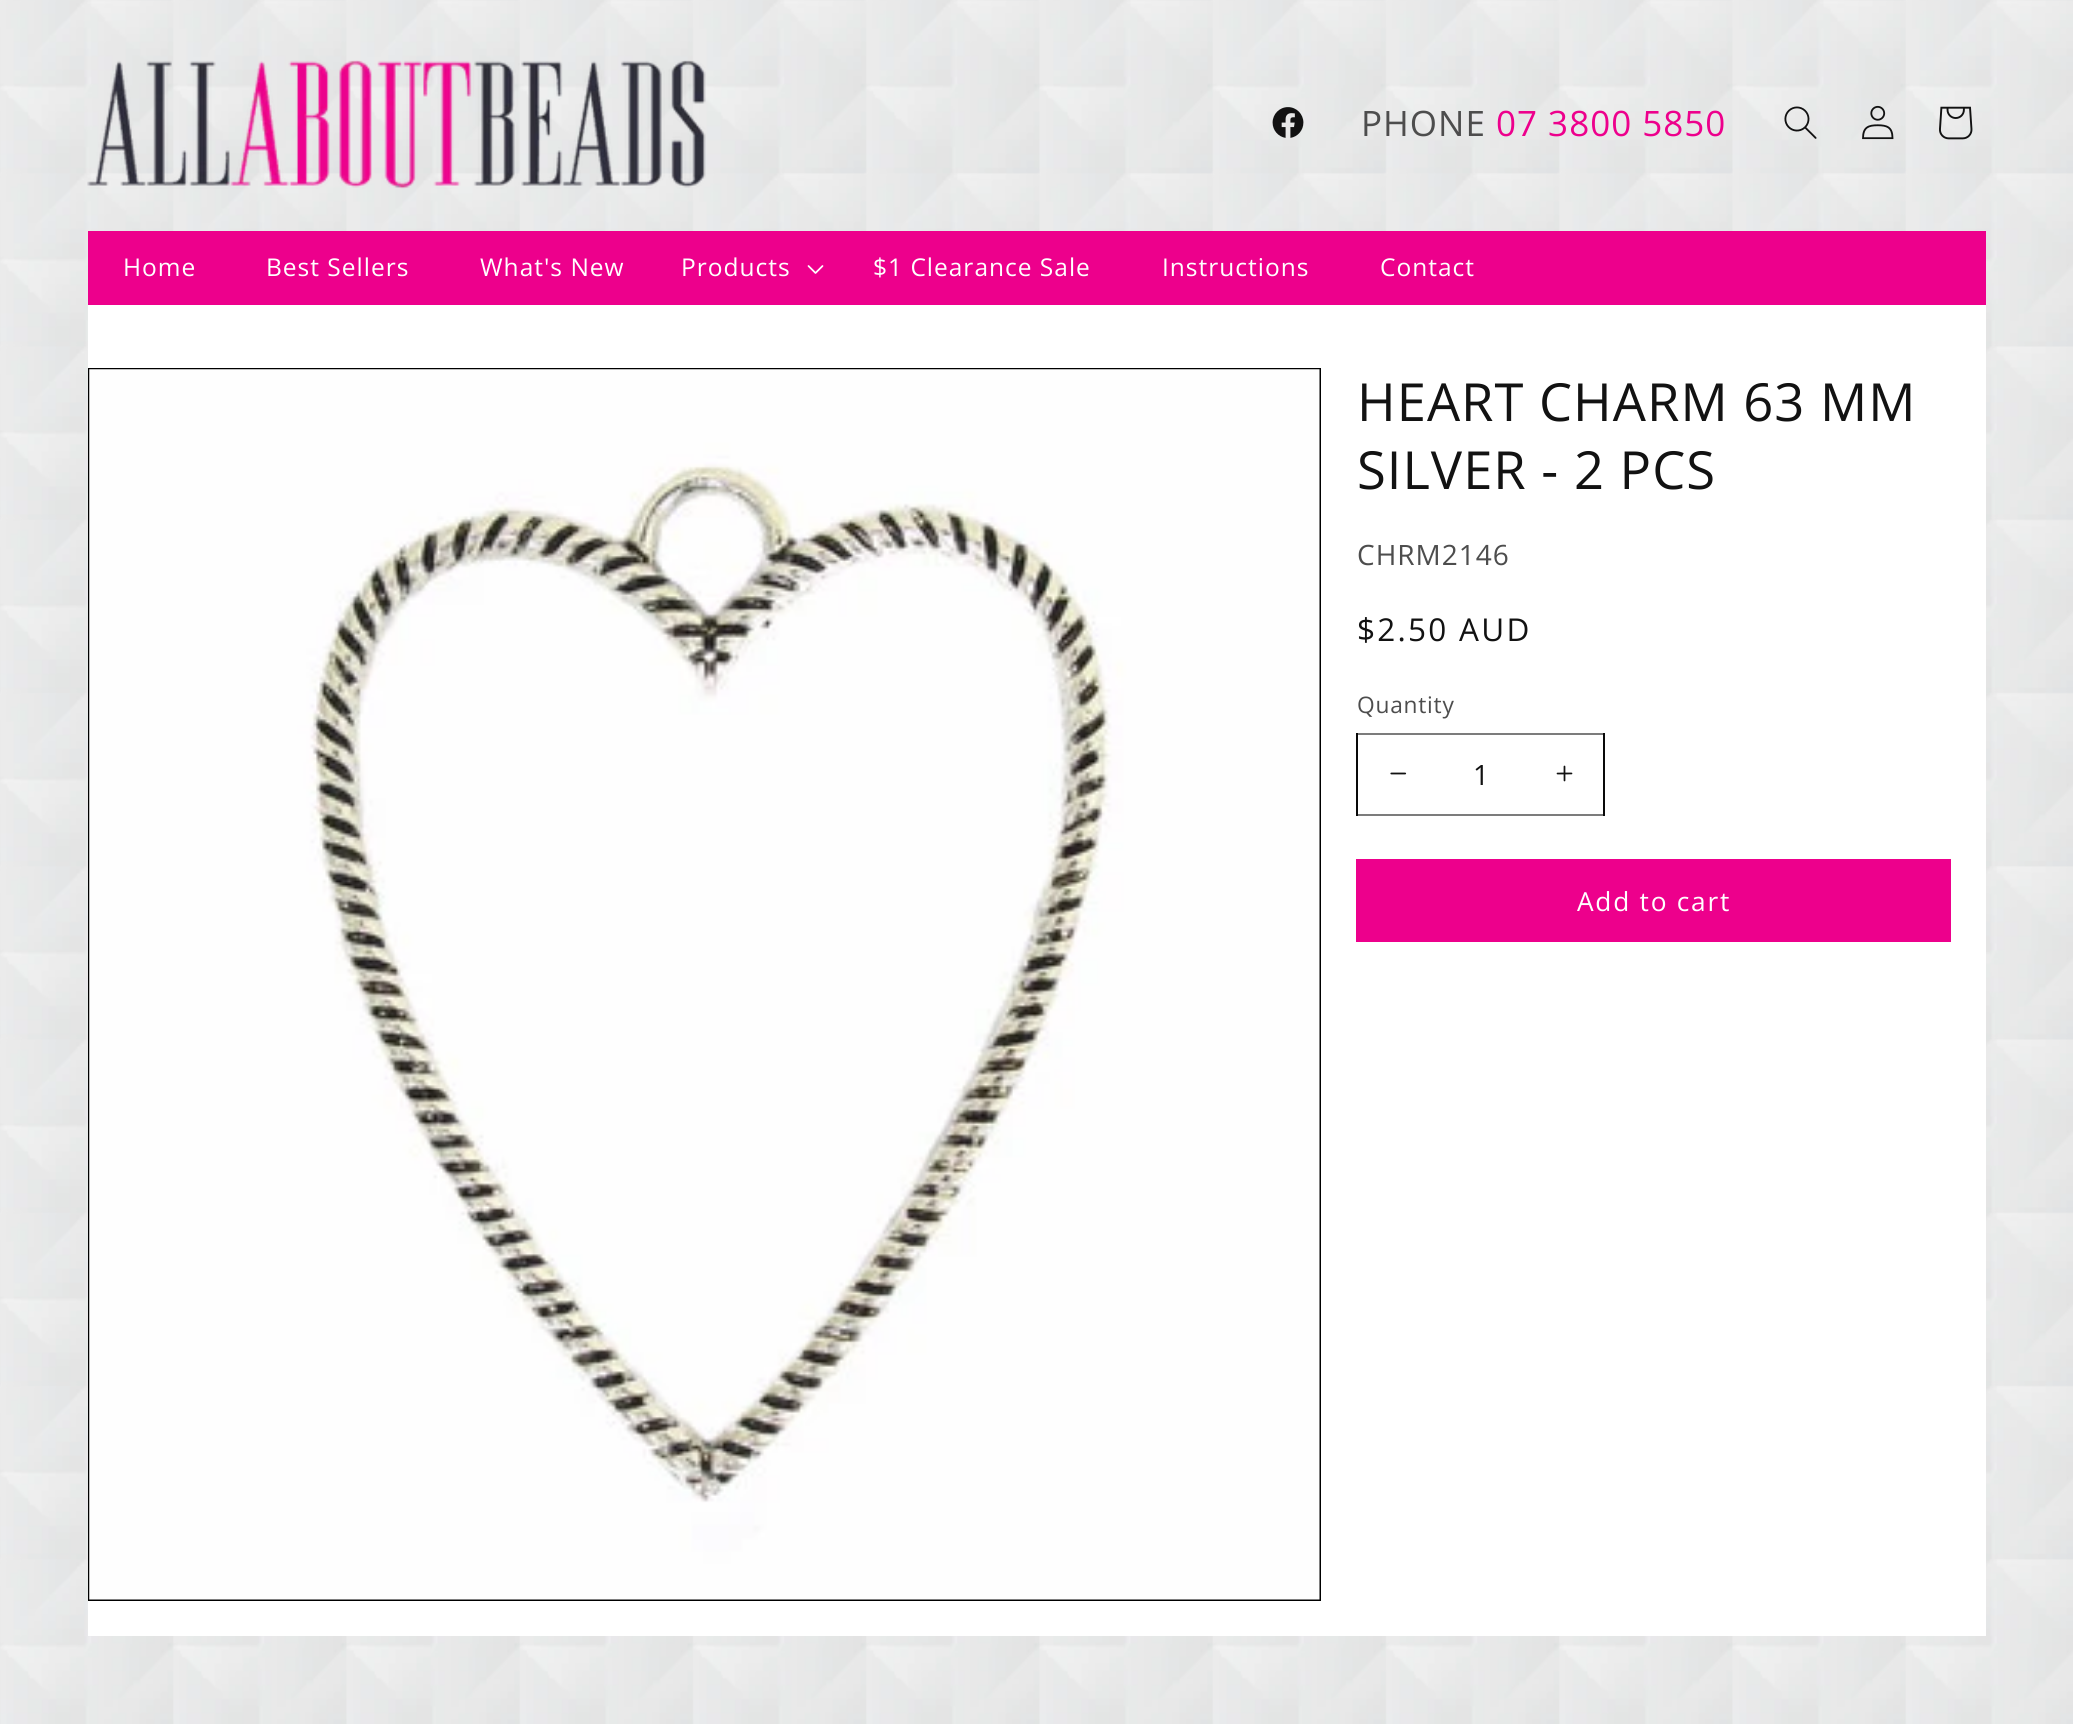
import math
import cairo

surface = cairo.ImageSurface(cairo.FORMAT_RGB24, 2073, 1724)
ctx = cairo.Context(surface)
options = cairo.FontOptions()
options.set_hint_metrics(cairo.HINT_METRICS_OFF)
options.set_hint_style(cairo.HINT_STYLE_NONE)
ctx.set_font_options(options)
ctx.set_miter_limit(4)


def set_color(code):
    ctx.set_source_rgb(*(v / 255 for v in bytes.fromhex(code[-6:])))


def draw_text(x, y, s, family, size, color, bold=False, italic=False):
    ctx.select_font_face(family, cairo.FONT_SLANT_ITALIC if italic else cairo.FONT_SLANT_NORMAL, cairo.FONT_WEIGHT_BOLD if bold else cairo.FONT_WEIGHT_NORMAL)
    ctx.set_font_size(size)
    set_color(color)
    ctx.move_to(x, y)
    ctx.show_text(s)


def draw_spaced(x, y, s, letter, word):
    ctx.move_to(x, y)
    for ch in s:
        ctx.show_text(ch)
        ctx.rel_move_to(letter + word * (ch == ' '), 0)


def fill_rect(x, y, w, h, color):
    set_color(color)
    ctx.rectangle(x, y, w, h)
    ctx.fill()


def draw_image(path, x, y, w, h):
    ctx.save()
    ctx.set_source_surface(cairo.ImageSurface.create_from_png(path), x, y)
    ctx.rectangle(x, y, w, h)
    ctx.fill()
    ctx.restore()


set_color("#ffffff")
ctx.paint()
draw_image("assets/img1.png", 0, 0, 2073, 1724)
draw_image("assets/img2.png", 87, 60, 619, 129)
draw_image("assets/img3.png", 1272, 107, 32, 31)
ctx.select_font_face("Open Sans")
ctx.set_font_size(35)
set_color("#4d4d4d")
draw_spaced(1361, 136, "PHONE", 1, 0)
set_color("#ed008c")
draw_spaced(1496, 136, "07 3800 5850", 1, 0)
draw_image("assets/img4.png", 1784, 106, 33, 33)
draw_image("assets/img5.png", 1862, 105, 32, 35)
draw_image("assets/img6.png", 1939, 106, 34, 34)
fill_rect(88, 231, 1898, 74, "#ed008c")
ctx.set_font_size(24.5)
set_color("#ffffff")
draw_spaced(123, 276, "Home", 1, 0)
draw_spaced(266, 276, "Best Sellers", 1, 0)
draw_spaced(480, 276, "What's New", 1, 0)
draw_spaced(681, 276, "Products", 1, 0)
draw_image("assets/img7.png", 807, 265, 17, 9)
draw_spaced(873, 276, "$1 Clearance Sale", 1, 0)
draw_spaced(1162, 276, "Instructions", 1, 0)
draw_spaced(1380, 276, "Contact", 1, 0)
fill_rect(88, 305, 1898, 1331, "#ffffff")
fill_rect(88, 368, 1233, 1233, "#000000")
draw_image("assets/img8.png", 89, 369, 1231, 1231)
ctx.set_font_size(52.5)
set_color("#121212")
draw_spaced(1357, 421, "HEART CHARM 63 MM", 1, 0)
draw_spaced(1357, 489, "SILVER - 2 PCS", 1, 0)
ctx.set_font_size(28)
set_color("#4d4d4d")
draw_spaced(1357, 565, "CHRM2146", 1, 0)
ctx.set_font_size(31.5)
set_color("#121212")
draw_spaced(1357, 641, "$2.50 AUD", 2.25, 0)
ctx.set_font_size(22.75)
set_color("#4d4d4d")
draw_spaced(1357, 713, "Quantity", 0.75, 0)
fill_rect(1356, 733, 249, 83, "#000000")
fill_rect(1358, 733, 245, 83, "#ffffff")
draw_image("assets/img9.png", 1390, 772, 17, 3)
draw_image("assets/img10.png", 1556, 765, 17, 17)
ctx.rectangle(1357, 734, 247, 81)
ctx.set_source_rgba(0.071, 0.071, 0.071, 0.55)
ctx.stroke()
draw_text(1473, 785, "1", "Open Sans", 28, "#121212")
fill_rect(1356, 859, 595, 83, "#ed008c")
ctx.set_font_size(26.25)
set_color("#ffffff")
draw_spaced(1577, 911, "Add to cart", 1.75, 0)
surface.write_to_png("output.png")
